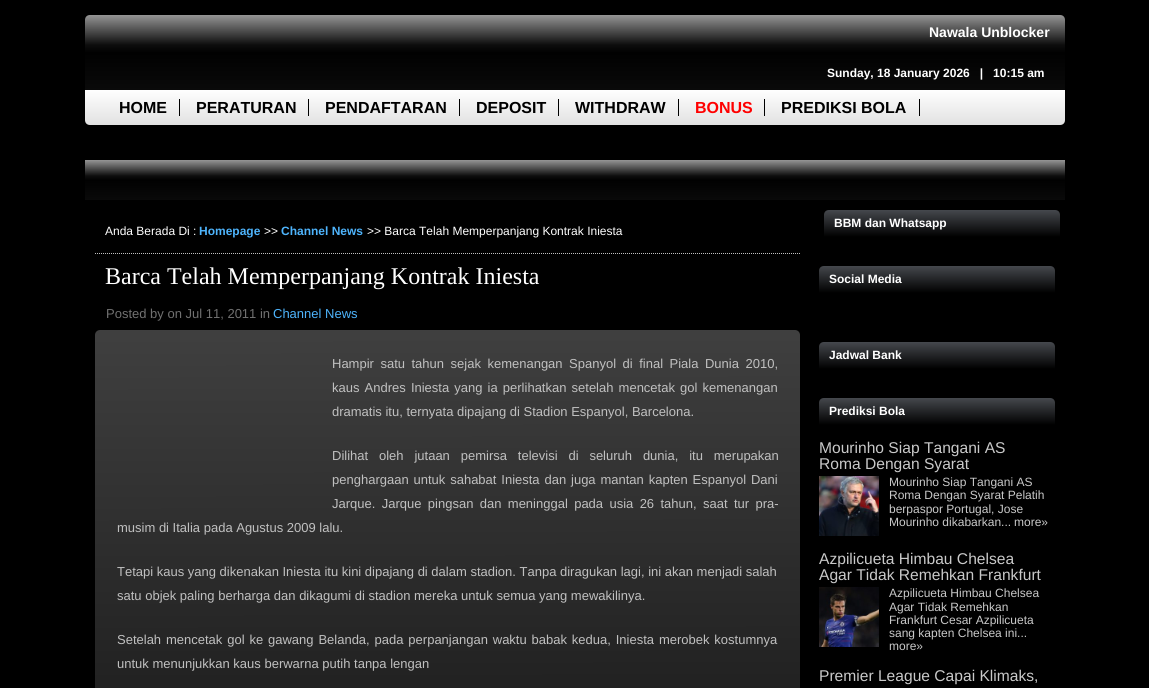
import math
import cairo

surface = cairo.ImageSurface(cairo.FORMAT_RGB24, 1149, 688)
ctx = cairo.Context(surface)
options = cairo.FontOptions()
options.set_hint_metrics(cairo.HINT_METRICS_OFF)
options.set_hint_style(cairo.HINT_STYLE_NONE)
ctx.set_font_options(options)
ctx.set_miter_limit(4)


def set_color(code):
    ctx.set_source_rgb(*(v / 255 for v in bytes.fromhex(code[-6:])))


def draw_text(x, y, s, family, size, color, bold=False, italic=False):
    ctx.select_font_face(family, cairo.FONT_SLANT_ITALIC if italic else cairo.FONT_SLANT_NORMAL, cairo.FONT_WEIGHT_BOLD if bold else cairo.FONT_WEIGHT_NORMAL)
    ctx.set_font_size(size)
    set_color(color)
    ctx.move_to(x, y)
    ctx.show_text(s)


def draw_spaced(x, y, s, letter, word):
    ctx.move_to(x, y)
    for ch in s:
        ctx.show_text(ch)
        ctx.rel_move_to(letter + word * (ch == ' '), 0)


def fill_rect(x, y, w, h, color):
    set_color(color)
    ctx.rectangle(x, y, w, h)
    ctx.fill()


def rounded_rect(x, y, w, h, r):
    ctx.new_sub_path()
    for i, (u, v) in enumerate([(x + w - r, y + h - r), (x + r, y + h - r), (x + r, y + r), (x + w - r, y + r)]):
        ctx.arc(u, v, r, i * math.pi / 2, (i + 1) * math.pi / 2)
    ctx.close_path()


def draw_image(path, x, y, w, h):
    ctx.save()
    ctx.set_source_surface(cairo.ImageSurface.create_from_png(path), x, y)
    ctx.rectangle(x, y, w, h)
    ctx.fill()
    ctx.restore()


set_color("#000000")
ctx.paint()
gradient = cairo.LinearGradient(575, 15, 575, 90)
gradient.add_color_stop_rgba(0, 0.584, 0.584, 0.584, 1)
gradient.add_color_stop_rgba(0.4, 0.051, 0.051, 0.051, 1)
gradient.add_color_stop_rgba(0.5, 0.004, 0.004, 0.004, 1)
gradient.add_color_stop_rgba(1, 0.039, 0.039, 0.039, 1)
ctx.set_source(gradient)
ctx.new_path()
ctx.move_to(90, 15)
ctx.line_to(1060, 15)
ctx.curve_to(1063, 15, 1065, 17, 1065, 20)
ctx.line_to(1065, 90)
ctx.line_to(85, 90)
ctx.line_to(85, 20)
ctx.curve_to(85, 17, 87, 15, 90, 15)
ctx.close_path()
ctx.fill()
draw_text(929, 37, "Nawala Unblocker", "Liberation Sans", 14, "#ffffff", bold=True)
draw_text(827, 77, "Sunday, 18 January 2026   |   10:15 am", "Liberation Sans", 12, "#ffffff", bold=True)
gradient = cairo.LinearGradient(575, 90, 575, 125)
gradient.add_color_stop_rgba(0, 0.996, 0.996, 0.996, 1)
gradient.add_color_stop_rgba(1, 0.886, 0.886, 0.886, 1)
ctx.set_source(gradient)
ctx.new_path()
ctx.move_to(85, 90)
ctx.line_to(1065, 90)
ctx.line_to(1065, 120)
ctx.curve_to(1065, 123, 1063, 125, 1060, 125)
ctx.line_to(90, 125)
ctx.curve_to(87, 125, 85, 123, 85, 120)
ctx.close_path()
ctx.fill()
draw_text(119, 113, "HOME", "Liberation Sans", 16, "#000000", bold=True)
fill_rect(179, 99, 1, 17, "#000000")
draw_text(196, 113, "PERATURAN", "Liberation Sans", 16, "#000000", bold=True)
fill_rect(308, 99, 1, 17, "#000000")
draw_text(325, 113, "PENDAFTARAN", "Liberation Sans", 16, "#000000", bold=True)
fill_rect(459, 99, 1, 17, "#000000")
draw_text(476, 113, "DEPOSIT", "Liberation Sans", 16, "#000000", bold=True)
fill_rect(558, 99, 1, 17, "#000000")
draw_text(575, 113, "WITHDRAW", "Liberation Sans", 16, "#000000", bold=True)
fill_rect(678, 99, 1, 17, "#000000")
draw_text(695, 113, "BONUS", "Liberation Sans", 16, "#ff0000", bold=True)
fill_rect(764, 99, 1, 17, "#000000")
draw_text(781, 113, "PREDIKSI BOLA", "Liberation Sans", 16, "#000000", bold=True)
fill_rect(919, 99, 1, 17, "#000000")
gradient = cairo.LinearGradient(575, 160, 575, 200)
gradient.add_color_stop_rgba(0, 0.584, 0.584, 0.584, 1)
gradient.add_color_stop_rgba(0.4, 0.051, 0.051, 0.051, 1)
gradient.add_color_stop_rgba(0.5, 0.004, 0.004, 0.004, 1)
gradient.add_color_stop_rgba(1, 0.039, 0.039, 0.039, 1)
ctx.set_source(gradient)
ctx.rectangle(85, 160, 980, 40)
ctx.fill()
ctx.new_path()
ctx.move_to(95, 253.5)
ctx.line_to(800, 253.5)
set_color("#c0c0c0")
ctx.set_line_width(1)
ctx.set_dash([1, 1])
ctx.stroke()
draw_text(105, 235, "Anda Berada Di :", "Liberation Sans", 12, "#ffffff")
draw_text(199, 235, "Homepage", "Liberation Sans", 12, "#4eb4fc", bold=True)
draw_text(264, 235, ">>", "Liberation Sans", 12, "#ffffff")
draw_text(281, 235, "Channel News", "Liberation Sans", 12, "#4eb4fc", bold=True)
draw_text(367, 235, ">> Barca Telah Memperpanjang Kontrak Iniesta", "Liberation Sans", 12, "#ffffff")
draw_text(105, 284, "Barca Telah Memperpanjang Kontrak Iniesta", "Liberation Serif", 24, "#ffffff")
draw_text(106, 318, "Posted by on Jul 11, 2011 in", "Liberation Sans", 13, "#717171")
draw_text(273, 318, "Channel News", "Liberation Sans", 13, "#4eb4fc")
gradient = cairo.LinearGradient(447, 330, 448, 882)
gradient.add_color_stop_rgba(0.01, 0.247, 0.247, 0.247, 1)
gradient.add_color_stop_rgba(1, 0.067, 0.067, 0.067, 1)
ctx.set_source(gradient)
rounded_rect(95, 330, 705, 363, 5)
ctx.fill()
set_color("#c0c0c0")
draw_spaced(332, 368, "Hampir satu tahun sejak kemenangan Spanyol di final Piala Dunia 2010,", 0, 2.9)
draw_spaced(332, 392, "kaus Andres Iniesta yang ia perlihatkan setelah mencetak gol kemenangan", 0, 1.5)
draw_text(332, 416, "dramatis itu, ternyata dipajang di Stadion Espanyol, Barcelona.", "Liberation Sans", 13, "#c0c0c0")
draw_spaced(332, 460, "Dilihat oleh jutaan pemirsa televisi di seluruh dunia, itu merupakan", 0, 7.25)
draw_spaced(332, 484, "penghargaan untuk sahabat Iniesta dan juga mantan kapten Espanyol Dani", 0, 1.25)
draw_spaced(332, 508, "Jarque. Jarque pingsan dan meninggal pada usia 26 tahun, saat tur pra-", 0, 2.75)
draw_text(117, 532, "musim di Italia pada Agustus 2009 lalu.", "Liberation Sans", 13, "#c0c0c0")
draw_text(117, 576, "Tetapi kaus yang dikenakan Iniesta itu kini dipajang di dalam stadion. Tanpa diragukan lagi, ini akan menjadi salah", "Liberation Sans", 13, "#c0c0c0")
draw_text(117, 600, "satu objek paling berharga dan dikagumi di stadion mereka untuk semua yang mewakilinya.", "Liberation Sans", 13, "#c0c0c0")
draw_spaced(117, 644, "Setelah mencetak gol ke gawang Belanda, pada perpanjangan waktu babak kedua, Iniesta merobek kostumnya", 0, 1.25)
draw_text(117, 668, "untuk menunjukkan kaus berwarna putih tanpa lengan", "Liberation Sans", 13, "#c0c0c0")
gradient = cairo.LinearGradient(942, 210, 942, 237)
gradient.add_color_stop_rgba(0, 0.271, 0.282, 0.302, 1)
gradient.add_color_stop_rgba(1, 0, 0, 0, 1)
ctx.set_source(gradient)
ctx.new_path()
ctx.move_to(829, 210)
ctx.line_to(1055, 210)
ctx.curve_to(1058, 210, 1060, 212, 1060, 215)
ctx.line_to(1060, 237)
ctx.line_to(824, 237)
ctx.line_to(824, 215)
ctx.curve_to(824, 212, 826, 210, 829, 210)
ctx.close_path()
ctx.fill()
draw_text(834, 227, "BBM dan Whatsapp", "Liberation Sans", 12, "#ffffff", bold=True)
gradient = cairo.LinearGradient(937, 266, 937, 293)
gradient.add_color_stop_rgba(0, 0.271, 0.282, 0.302, 1)
gradient.add_color_stop_rgba(1, 0, 0, 0, 1)
ctx.set_source(gradient)
ctx.new_path()
ctx.move_to(824, 266)
ctx.line_to(1050, 266)
ctx.curve_to(1053, 266, 1055, 268, 1055, 271)
ctx.line_to(1055, 293)
ctx.line_to(819, 293)
ctx.line_to(819, 271)
ctx.curve_to(819, 268, 821, 266, 824, 266)
ctx.close_path()
ctx.fill()
draw_text(829, 283, "Social Media", "Liberation Sans", 12, "#ffffff", bold=True)
gradient = cairo.LinearGradient(937, 342, 937, 369)
gradient.add_color_stop_rgba(0, 0.271, 0.282, 0.302, 1)
gradient.add_color_stop_rgba(1, 0, 0, 0, 1)
ctx.set_source(gradient)
ctx.new_path()
ctx.move_to(824, 342)
ctx.line_to(1050, 342)
ctx.curve_to(1053, 342, 1055, 344, 1055, 347)
ctx.line_to(1055, 369)
ctx.line_to(819, 369)
ctx.line_to(819, 347)
ctx.curve_to(819, 344, 821, 342, 824, 342)
ctx.close_path()
ctx.fill()
draw_text(829, 359, "Jadwal Bank", "Liberation Sans", 12, "#ffffff", bold=True)
gradient = cairo.LinearGradient(937, 398, 937, 425)
gradient.add_color_stop_rgba(0, 0.271, 0.282, 0.302, 1)
gradient.add_color_stop_rgba(1, 0, 0, 0, 1)
ctx.set_source(gradient)
ctx.new_path()
ctx.move_to(824, 398)
ctx.line_to(1050, 398)
ctx.curve_to(1053, 398, 1055, 400, 1055, 403)
ctx.line_to(1055, 425)
ctx.line_to(819, 425)
ctx.line_to(819, 403)
ctx.curve_to(819, 400, 821, 398, 824, 398)
ctx.close_path()
ctx.fill()
draw_text(829, 415, "Prediksi Bola", "Liberation Sans", 12, "#ffffff", bold=True)
draw_text(819, 453, "Mourinho Siap Tangani AS", "Liberation Sans", 15.6, "#c9c9c9")
draw_text(819, 469, "Roma Dengan Syarat", "Liberation Sans", 15.6, "#c9c9c9")
draw_image("assets/img1.png", 819, 476, 60, 60)
draw_text(889, 486, "Mourinho Siap Tangani AS", "Liberation Sans", 12, "#c9c9c9")
draw_text(889, 499, "Roma Dengan Syarat Pelatih", "Liberation Sans", 12, "#c9c9c9")
draw_text(889, 513, "berpaspor Portugal, Jose", "Liberation Sans", 12, "#c9c9c9")
draw_text(889, 526, "Mourinho dikabarkan...", "Liberation Sans", 12, "#c9c9c9")
draw_text(1014, 526, "more»", "Liberation Sans", 12, "#c9c9c9")
draw_text(819, 564, "Azpilicueta Himbau Chelsea", "Liberation Sans", 15.6, "#c9c9c9")
draw_text(819, 580, "Agar Tidak Remehkan Frankfurt", "Liberation Sans", 15.6, "#c9c9c9")
draw_image("assets/img2.png", 819, 587, 60, 60)
draw_text(889, 597, "Azpilicueta Himbau Chelsea", "Liberation Sans", 12, "#c9c9c9")
draw_text(889, 611, "Agar Tidak Remehkan", "Liberation Sans", 12, "#c9c9c9")
draw_text(889, 624, "Frankfurt Cesar Azpilicueta", "Liberation Sans", 12, "#c9c9c9")
draw_text(889, 637, "sang kapten Chelsea ini...", "Liberation Sans", 12, "#c9c9c9")
draw_text(889, 650, "more»", "Liberation Sans", 12, "#c9c9c9")
draw_text(819, 681, "Premier League Capai Klimaks,", "Liberation Sans", 15.6, "#c9c9c9")
surface.write_to_png("output.png")
